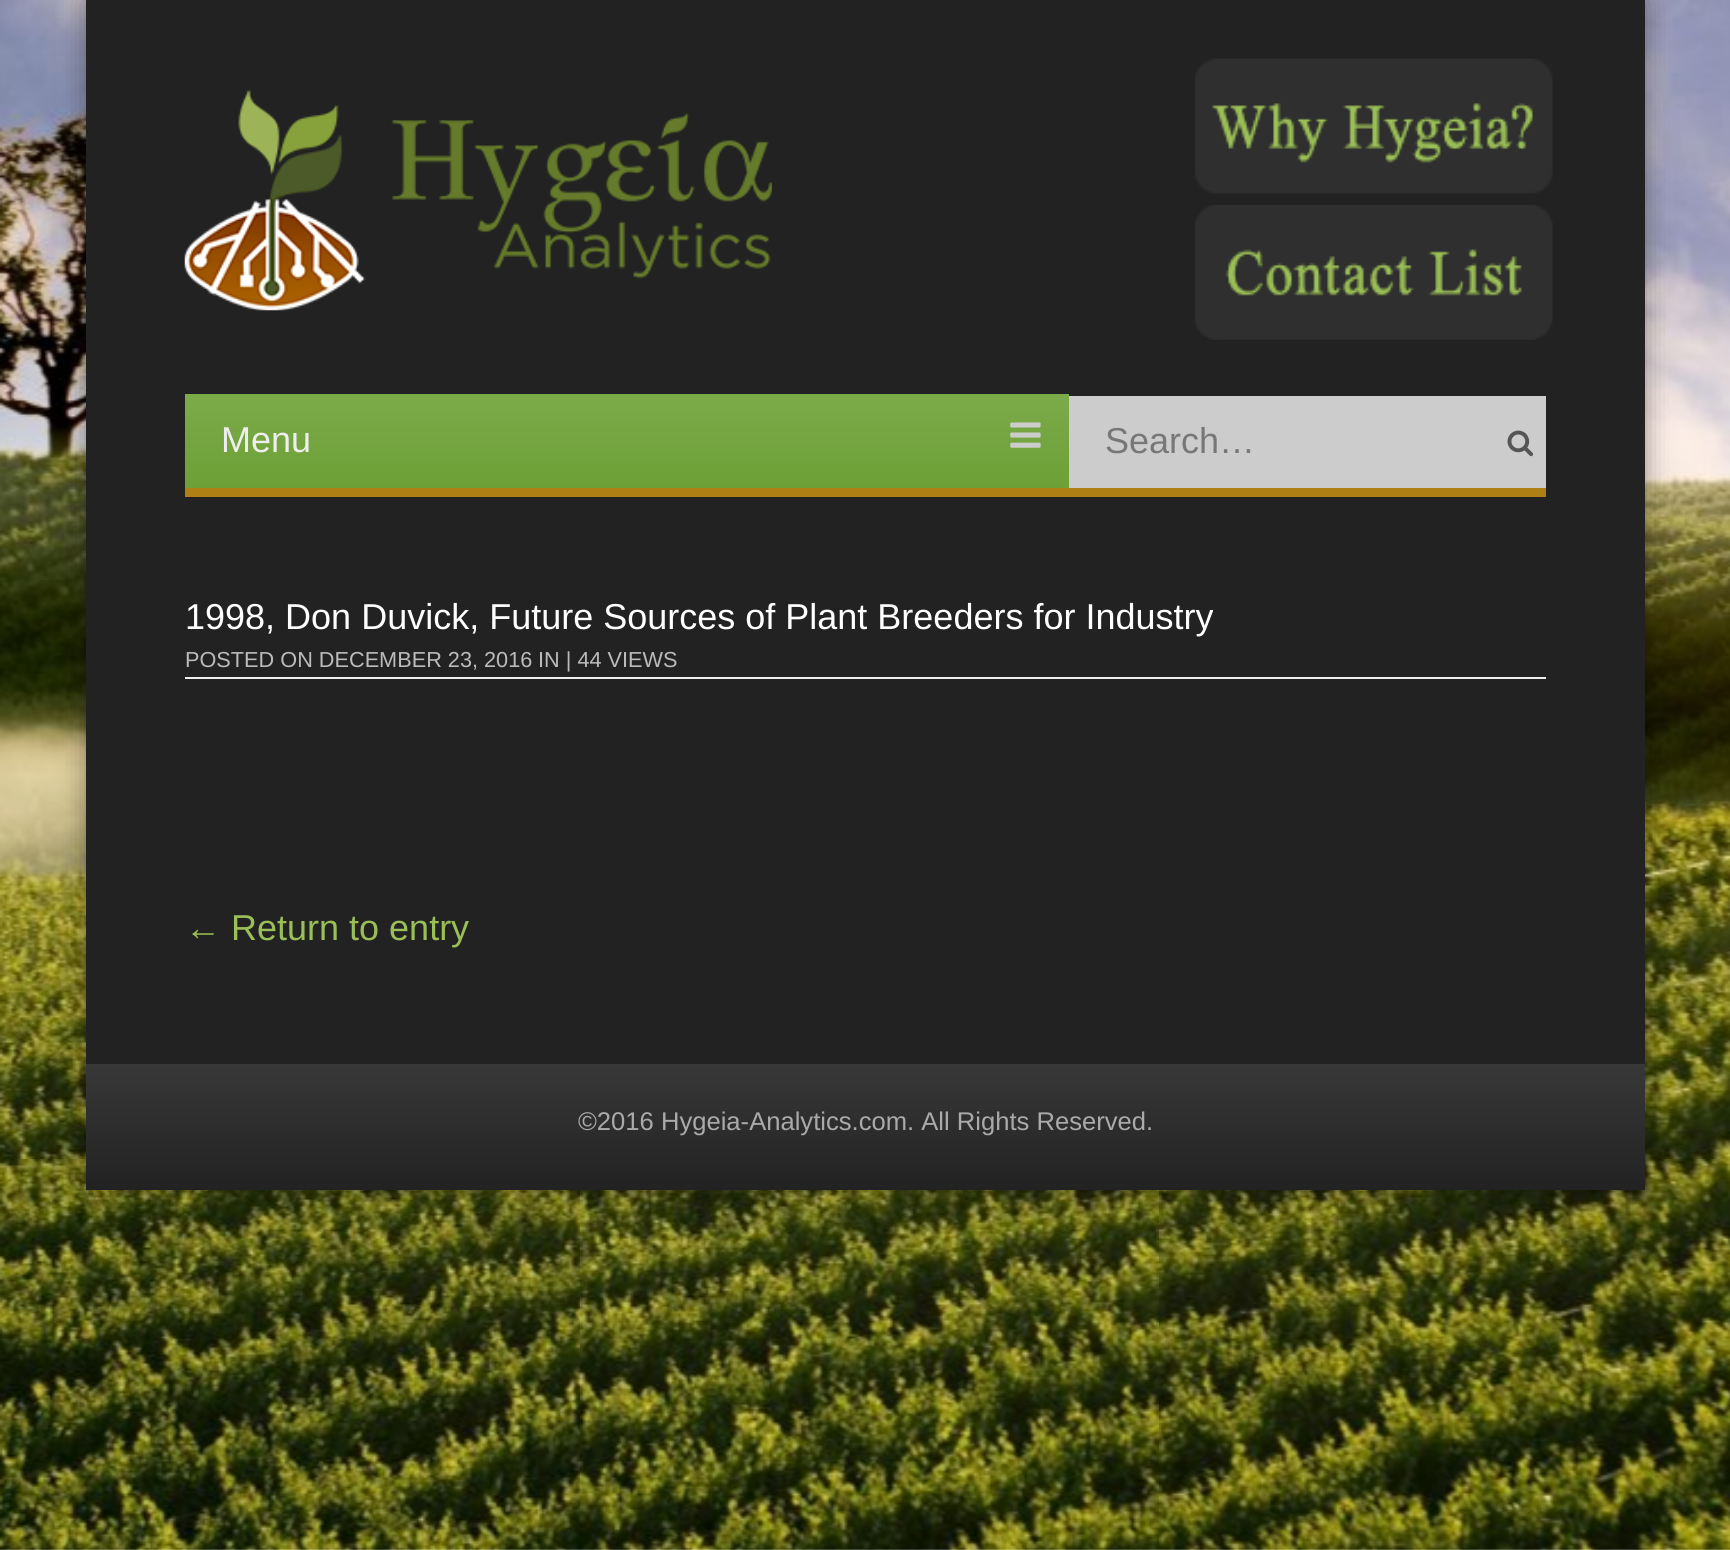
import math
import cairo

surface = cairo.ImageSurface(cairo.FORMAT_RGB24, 1730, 1550)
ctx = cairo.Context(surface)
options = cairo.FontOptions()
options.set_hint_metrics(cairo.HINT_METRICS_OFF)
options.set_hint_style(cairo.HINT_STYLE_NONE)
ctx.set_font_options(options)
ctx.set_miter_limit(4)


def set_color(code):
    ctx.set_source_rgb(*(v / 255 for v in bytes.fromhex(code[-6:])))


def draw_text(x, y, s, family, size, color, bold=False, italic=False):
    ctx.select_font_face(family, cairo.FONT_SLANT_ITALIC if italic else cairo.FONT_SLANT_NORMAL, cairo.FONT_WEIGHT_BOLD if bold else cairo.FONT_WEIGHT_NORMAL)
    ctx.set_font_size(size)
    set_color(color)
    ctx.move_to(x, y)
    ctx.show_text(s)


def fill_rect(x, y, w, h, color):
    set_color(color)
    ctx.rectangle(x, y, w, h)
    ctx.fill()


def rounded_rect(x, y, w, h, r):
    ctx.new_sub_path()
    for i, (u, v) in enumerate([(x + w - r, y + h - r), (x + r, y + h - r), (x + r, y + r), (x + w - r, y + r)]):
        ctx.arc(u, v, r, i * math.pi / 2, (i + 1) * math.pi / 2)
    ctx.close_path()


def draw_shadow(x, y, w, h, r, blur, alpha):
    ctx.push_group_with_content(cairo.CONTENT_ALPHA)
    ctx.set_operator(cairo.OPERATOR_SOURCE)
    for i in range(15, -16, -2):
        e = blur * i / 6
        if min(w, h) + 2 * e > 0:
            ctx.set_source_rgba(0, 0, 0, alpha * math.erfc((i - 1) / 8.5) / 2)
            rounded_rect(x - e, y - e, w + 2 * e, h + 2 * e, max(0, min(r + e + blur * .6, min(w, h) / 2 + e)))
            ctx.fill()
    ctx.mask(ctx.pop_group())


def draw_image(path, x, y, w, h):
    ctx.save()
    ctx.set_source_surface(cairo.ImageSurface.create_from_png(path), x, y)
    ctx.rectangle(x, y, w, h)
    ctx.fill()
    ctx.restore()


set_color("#ffffff")
ctx.paint()
draw_image("assets/img1.png", 0, 0, 1730, 1550)
set_color("#000000")
draw_shadow(86, 0, 1559, 1190, 0, 13.5, 0.4)
fill_rect(86, 0, 1559, 1064, "#222222")
draw_image("assets/img2.png", 184, 90, 588, 221)
draw_image("assets/img3.png", 1195, 58, 358, 136)
draw_image("assets/img4.png", 1195, 205, 358, 135)
fill_rect(185, 488, 1361, 9, "#af8115")
gradient = cairo.LinearGradient(627, 394, 627, 488)
gradient.add_color_stop_rgba(0, 0.486, 0.667, 0.29, 1)
gradient.add_color_stop_rgba(1, 0.427, 0.627, 0.212, 1)
ctx.set_source(gradient)
ctx.rectangle(185, 394, 884, 94)
ctx.fill()
draw_text(221, 452, "Menu", "Liberation Sans", 36, "#eeeeee")
draw_image("assets/img5.png", 1010, 422, 31, 26)
fill_rect(1069, 396, 477, 92, "#cccccc")
draw_text(1105, 453, "Search…", "Liberation Sans", 36, "#777777")
draw_image("assets/img6.png", 1507, 430, 27, 27)
fill_rect(185, 677, 1361, 2, "#eeeeee")
draw_text(185, 629, "1998, Don Duvick, Future Sources of Plant Breeders for Industry", "Liberation Sans", 36, "#ffffff")
draw_text(185, 667, "POSTED ON DECEMBER 23, 2016", "Liberation Sans", 21.7, "#bbbbbb")
draw_text(538, 667, "IN | 44 VIEWS", "Liberation Sans", 21.7, "#bbbbbb")
draw_text(185, 940, "← Return to entry", "Liberation Sans", 36, "#9bbf57")
gradient = cairo.LinearGradient(865, 1064, 865, 1190)
gradient.add_color_stop_rgba(0, 0.22, 0.22, 0.22, 1)
gradient.add_color_stop_rgba(1, 0.133, 0.133, 0.133, 1)
ctx.set_source(gradient)
ctx.rectangle(86, 1064, 1559, 126)
ctx.fill()
draw_text(578, 1130, "©2016 Hygeia-Analytics.com. All Rights Reserved.", "Liberation Sans", 25.6, "#aaaaaa")
surface.write_to_png("output.png")
